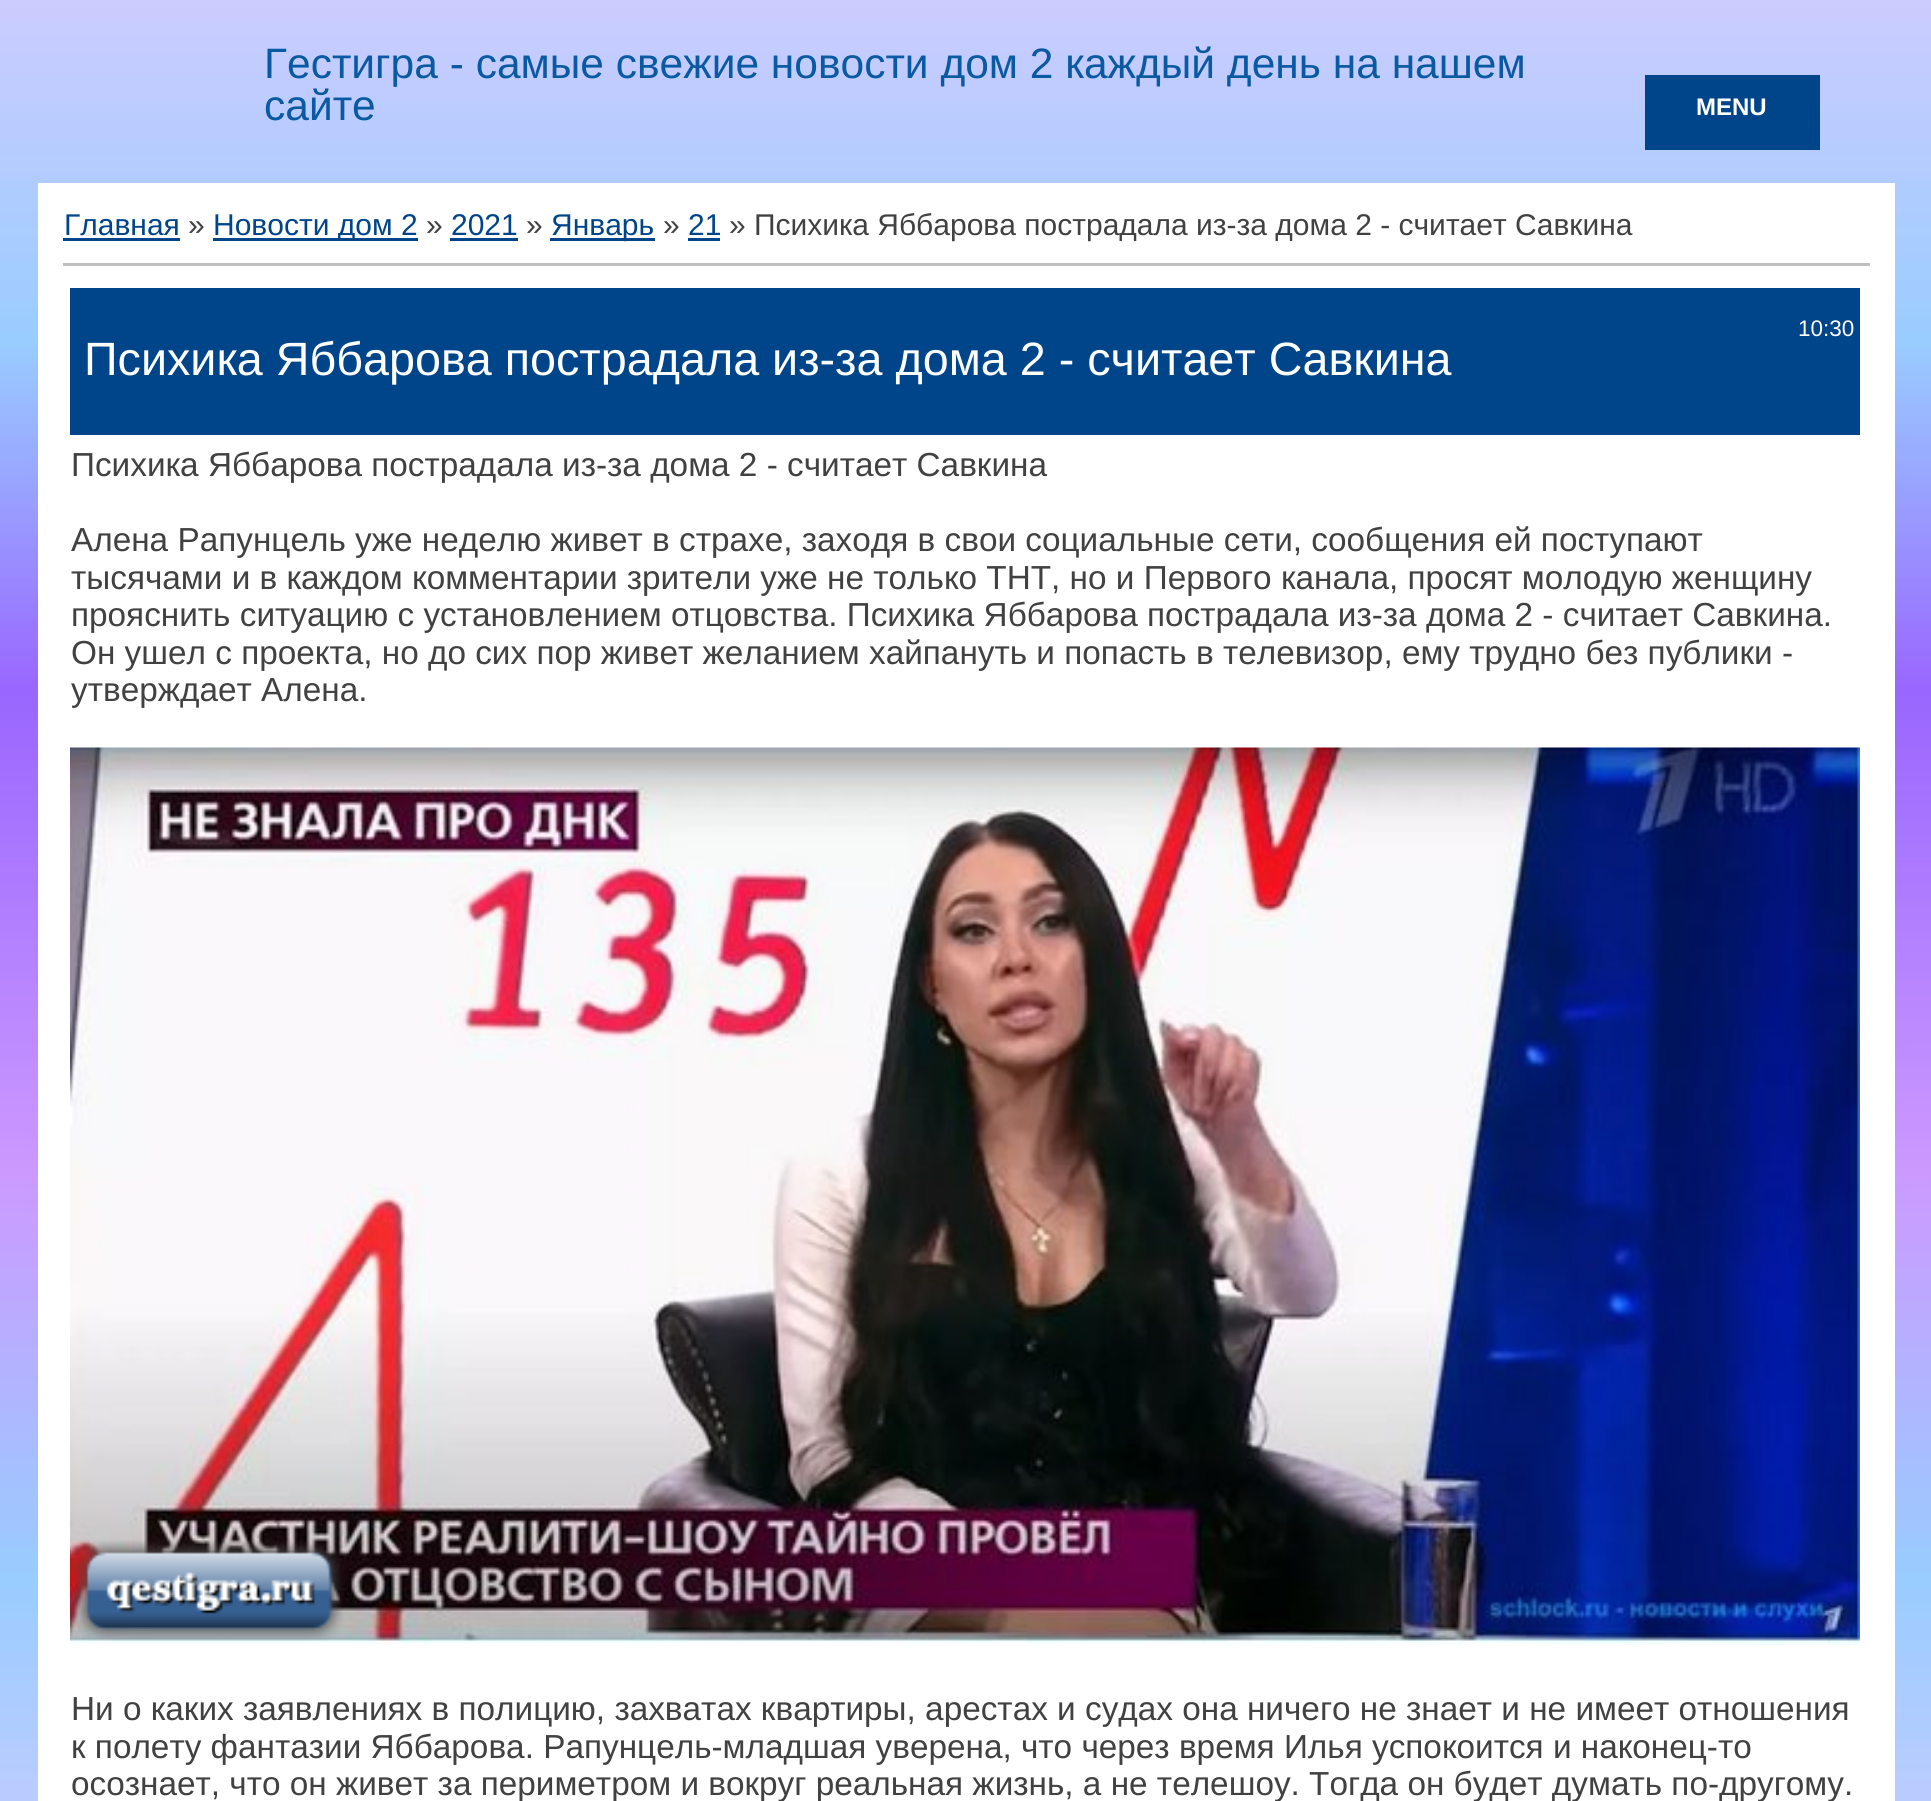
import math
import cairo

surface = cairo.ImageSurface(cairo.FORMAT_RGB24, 1931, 1801)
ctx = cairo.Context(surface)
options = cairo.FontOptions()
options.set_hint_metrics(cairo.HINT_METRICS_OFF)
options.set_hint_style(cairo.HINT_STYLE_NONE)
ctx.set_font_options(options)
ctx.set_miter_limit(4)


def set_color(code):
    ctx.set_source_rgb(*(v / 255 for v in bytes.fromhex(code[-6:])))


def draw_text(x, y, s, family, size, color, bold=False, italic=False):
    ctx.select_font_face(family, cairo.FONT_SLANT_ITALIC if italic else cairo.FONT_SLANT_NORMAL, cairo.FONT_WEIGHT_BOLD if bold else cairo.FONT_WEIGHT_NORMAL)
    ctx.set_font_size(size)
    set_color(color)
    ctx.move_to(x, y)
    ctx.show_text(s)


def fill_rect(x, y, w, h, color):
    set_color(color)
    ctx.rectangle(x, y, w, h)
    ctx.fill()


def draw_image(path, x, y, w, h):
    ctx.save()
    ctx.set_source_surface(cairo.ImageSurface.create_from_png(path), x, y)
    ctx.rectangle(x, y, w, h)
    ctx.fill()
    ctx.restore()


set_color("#ffffff")
ctx.paint()
draw_image("assets/img1.png", 0, 0, 1931, 1801)
draw_text(264, 78, "Гестигра - самые свежие новости дом 2 каждый день на нашем", "Liberation Sans", 42.5, "#095aa2")
draw_text(264, 120, "сайте", "Liberation Sans", 42.5, "#095aa2")
fill_rect(1645, 75, 175, 75, "#00448a")
draw_text(1696, 115, "MENU", "Liberation Sans", 24, "#ffffff", bold=True)
fill_rect(38, 183, 1857, 1618, "#ffffff")
draw_text(64, 235, "Главная", "Liberation Sans", 30, "#00448a")
fill_rect(63, 238, 117, 3, "#00448a")
draw_text(188, 235, "»", "Liberation Sans", 30, "#414141")
fill_rect(213, 238, 205, 3, "#00448a")
draw_text(213, 235, "Новости дом 2", "Liberation Sans", 30, "#00448a")
draw_text(426, 235, "»", "Liberation Sans", 30, "#414141")
draw_text(451, 235, "2021", "Liberation Sans", 30, "#00448a")
fill_rect(450, 238, 68, 3, "#00448a")
draw_text(526, 235, "»", "Liberation Sans", 30, "#414141")
fill_rect(550, 238, 105, 3, "#00448a")
draw_text(551, 235, "Январь", "Liberation Sans", 30, "#00448a")
draw_text(663, 235, "»", "Liberation Sans", 30, "#414141")
draw_text(688, 235, "21", "Liberation Sans", 30, "#00448a")
fill_rect(688, 238, 32, 3, "#00448a")
draw_text(729, 235, "» Психика Яббарова пострадала из-за дома 2 - считает Савкина", "Liberation Sans", 30, "#414141")
fill_rect(63, 263, 1807, 3, "#bfbfbf")
fill_rect(70, 288, 1790, 147, "#00448a")
draw_text(1798, 336, "10:30", "Liberation Sans", 22.5, "#ffffff")
draw_text(84, 375, "Психика Яббарова пострадала из-за дома 2 - считает Савкина", "Liberation Sans", 46.7, "#ffffff")
draw_text(71, 476, "Психика Яббарова пострадала из-за дома 2 - считает Савкина", "Liberation Sans", 33.33, "#414141")
draw_text(71, 551, "Алена Рапунцель уже неделю живет в страхе, заходя в свои социальные сети, сообщения ей поступают", "Liberation Sans", 33.33, "#414141")
draw_text(71, 589, "тысячами и в каждом комментарии зрители уже не только ТНТ, но и Первого канала, просят молодую женщину", "Liberation Sans", 33.33, "#414141")
draw_text(71, 626, "прояснить ситуацию с установлением отцовства. Психика Яббарова пострадала из-за дома 2 - считает Савкина.", "Liberation Sans", 33.33, "#414141")
draw_text(71, 664, "Он ушел с проекта, но до сих пор живет желанием хайпануть и попасть в телевизор, ему трудно без публики -", "Liberation Sans", 33.33, "#414141")
draw_text(71, 701, "утверждает Алена.", "Liberation Sans", 33.33, "#414141")
draw_image("assets/img2.png", 70, 747, 1790, 898)
draw_text(71, 1720, "Ни о каких заявлениях в полицию, захватах квартиры, арестах и судах она ничего не знает и не имеет отношения", "Liberation Sans", 33.33, "#414141")
draw_text(71, 1758, "к полету фантазии Яббарова. Рапунцель-младшая уверена, что через время Илья успокоится и наконец-то", "Liberation Sans", 33.33, "#414141")
draw_text(71, 1795, "осознает, что он живет за периметром и вокруг реальная жизнь, а не телешоу. Тогда он будет думать по-другому.", "Liberation Sans", 33.33, "#414141")
surface.write_to_png("output.png")
